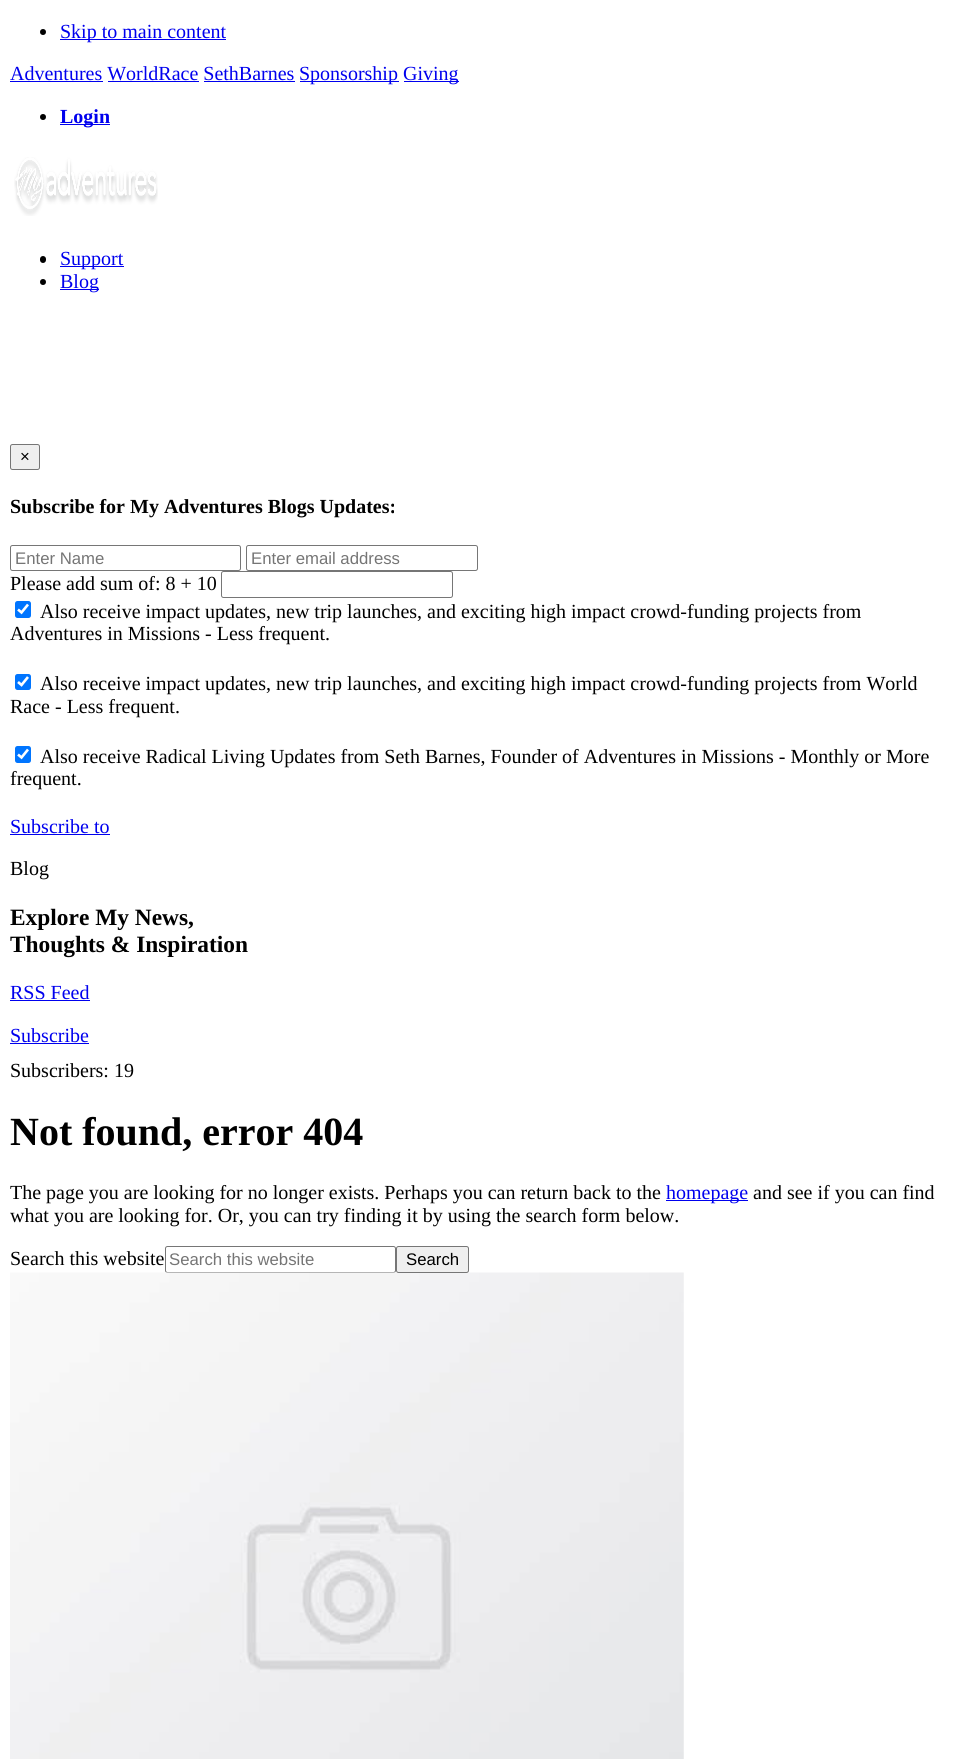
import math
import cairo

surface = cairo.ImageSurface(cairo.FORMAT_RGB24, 967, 1759)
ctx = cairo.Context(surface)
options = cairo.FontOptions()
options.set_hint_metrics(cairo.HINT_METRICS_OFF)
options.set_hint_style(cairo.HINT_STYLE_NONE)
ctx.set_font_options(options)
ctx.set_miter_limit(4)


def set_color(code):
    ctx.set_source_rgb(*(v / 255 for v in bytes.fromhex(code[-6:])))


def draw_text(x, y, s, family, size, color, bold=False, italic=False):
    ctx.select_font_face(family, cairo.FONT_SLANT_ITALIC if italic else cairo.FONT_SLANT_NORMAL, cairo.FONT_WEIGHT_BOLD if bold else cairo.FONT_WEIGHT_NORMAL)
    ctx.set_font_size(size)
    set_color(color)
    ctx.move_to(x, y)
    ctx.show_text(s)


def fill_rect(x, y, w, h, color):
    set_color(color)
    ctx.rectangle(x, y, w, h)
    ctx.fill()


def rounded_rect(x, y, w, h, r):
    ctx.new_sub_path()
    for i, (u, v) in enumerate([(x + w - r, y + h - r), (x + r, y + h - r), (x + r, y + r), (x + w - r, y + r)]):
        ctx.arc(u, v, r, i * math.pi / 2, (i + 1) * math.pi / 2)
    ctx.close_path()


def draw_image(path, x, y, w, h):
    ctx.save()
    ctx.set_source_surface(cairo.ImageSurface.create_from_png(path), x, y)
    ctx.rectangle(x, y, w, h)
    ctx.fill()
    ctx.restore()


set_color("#ffffff")
ctx.paint()
set_color("#000000")
ctx.arc(43, 32, 3, 0, 2 * math.pi)
ctx.fill()
fill_rect(60, 39, 166, 1, "#0000ee")
draw_text(60, 38, "Skip to main content", "Liberation Serif", 20, "#0000ee")
draw_text(10, 80, "Adventures WorldRace SethBarnes", "Liberation Serif", 20, "#0000ee")
fill_rect(10, 81, 93, 1, "#0000ee")
fill_rect(300, 81, 99, 1, "#0000ee")
draw_text(299, 80, "Sponsorship", "Liberation Serif", 20, "#0000ee")
fill_rect(404, 81, 55, 1, "#0000ee")
draw_text(403, 80, "Giving", "Liberation Serif", 20, "#0000ee")
fill_rect(108, 81, 91, 1, "#0000ee")
fill_rect(204, 81, 91, 1, "#0000ee")
set_color("#000000")
ctx.new_path()
ctx.arc(43, 117, 3, 0, 2 * math.pi)
ctx.fill()
fill_rect(60, 124, 50, 1, "#0000ee")
draw_text(60, 123, "Login", "Liberation Serif", 20, "#0000ee", bold=True)
draw_image("assets/img1.png", 14, 157, 144, 59)
set_color("#000000")
rounded_rect(40, 256, 6, 7, 3)
ctx.fill()
fill_rect(60, 266, 64, 1, "#0000ee")
draw_text(60, 265, "Support", "Liberation Serif", 20, "#0000ee")
set_color("#000000")
ctx.new_path()
ctx.arc(43, 282, 3, 0, 2 * math.pi)
ctx.fill()
fill_rect(60, 289, 39, 1, "#0000ee")
draw_text(60, 288, "Blog", "Liberation Serif", 20, "#0000ee")
set_color("#efefef")
rounded_rect(10.5, 444.5, 29, 25, 2)
ctx.fill_preserve()
set_color("#767676")
ctx.set_line_width(1)
ctx.stroke()
draw_text(20, 462, "×", "Liberation Sans", 16.75, "#000000")
draw_text(10, 513, "Subscribe for My Adventures Blogs Updates:", "Liberation Serif", 20, "#000000", bold=True)
rounded_rect(10.5, 545.5, 230, 25, 2)
set_color("#767676")
ctx.stroke()
draw_text(15, 564, "Enter Name", "Liberation Sans", 16.75, "#757575")
rounded_rect(246.5, 545.5, 231, 25, 2)
set_color("#767676")
ctx.stroke()
draw_text(251, 564, "Enter email address", "Liberation Sans", 16.75, "#757575")
draw_text(10, 590, "Please add sum of: 8 + 10", "Liberation Serif", 20, "#000000")
rounded_rect(221.5, 571.5, 231, 26, 2)
set_color("#767676")
ctx.stroke()
set_color("#0075ff")
rounded_rect(15, 601, 16, 17, 2.5)
ctx.fill()
ctx.new_path()
ctx.move_to(18, 609.5)
ctx.line_to(21.5, 612.5)
ctx.line_to(28, 604.5)
set_color("#ffffff")
ctx.set_line_width(2.6)
ctx.stroke()
draw_text(40, 618, "Also receive impact updates, new trip launches, and exciting high impact crowd-funding projects from", "Liberation Serif", 20, "#000000")
draw_text(10, 640, "Adventures in Missions - Less frequent.", "Liberation Serif", 20, "#000000")
set_color("#0075ff")
rounded_rect(15, 674, 16, 16, 2.5)
ctx.fill()
ctx.new_path()
ctx.move_to(18, 682)
ctx.line_to(21.5, 685)
ctx.line_to(28, 677)
set_color("#ffffff")
ctx.stroke()
draw_text(40, 690, "Also receive impact updates, new trip launches, and exciting high impact crowd-funding projects from World", "Liberation Serif", 20, "#000000")
draw_text(10, 713, "Race - Less frequent.", "Liberation Serif", 20, "#000000")
set_color("#0075ff")
rounded_rect(15, 746, 16, 17, 2.5)
ctx.fill()
ctx.new_path()
ctx.move_to(18, 754.5)
ctx.line_to(21.5, 757.5)
ctx.line_to(28, 749.5)
set_color("#ffffff")
ctx.stroke()
draw_text(40, 763, "Also receive Radical Living Updates from Seth Barnes, Founder of Adventures in Missions - Monthly or More", "Liberation Serif", 20, "#000000")
draw_text(10, 785, "frequent.", "Liberation Serif", 20, "#000000")
draw_text(10, 833, "Subscribe to", "Liberation Serif", 20, "#0000ee")
fill_rect(10, 834, 100, 1, "#0000ee")
draw_text(10, 875, "Blog", "Liberation Serif", 20, "#000000")
draw_text(10, 925, "Explore My News,", "Liberation Serif", 23.4, "#000000", bold=True)
draw_text(10, 952, "Thoughts & Inspiration", "Liberation Serif", 23.4, "#000000", bold=True)
draw_text(10, 999, "RSS Feed", "Liberation Serif", 20, "#0000ee")
fill_rect(10, 1000, 80, 1, "#0000ee")
draw_text(10, 1042, "Subscribe", "Liberation Serif", 20, "#0000ee")
fill_rect(10, 1043, 79, 1, "#0000ee")
draw_text(10, 1077, "Subscribers: 19", "Liberation Serif", 20, "#000000")
draw_text(10, 1145, "Not found, error 404", "Liberation Serif", 40, "#000000", bold=True)
draw_text(10, 1199, "The page you are looking for no longer exists. Perhaps you can return back to the", "Liberation Serif", 20, "#000000")
fill_rect(666, 1200, 82, 1, "#0000ee")
draw_text(666, 1199, "homepage", "Liberation Serif", 20, "#0000ee")
draw_text(753, 1199, "and see if you can find", "Liberation Serif", 20, "#000000")
draw_text(10, 1222, "what you are looking for. Or, you can try finding it by using the search form below.", "Liberation Serif", 20, "#000000")
draw_text(10, 1265, "Search this website", "Liberation Serif", 20, "#000000")
rounded_rect(165.5, 1246.5, 230, 26, 2)
set_color("#767676")
ctx.set_line_width(1)
ctx.stroke()
draw_text(169, 1265, "Search this website", "Liberation Sans", 16.75, "#757575")
draw_image("assets/img2.png", 10, 1272, 674, 487)
set_color("#efefef")
rounded_rect(396.5, 1246.5, 72, 26, 2)
ctx.fill_preserve()
set_color("#767676")
ctx.stroke()
draw_text(406, 1265, "Search", "Liberation Sans", 16.75, "#000000")
surface.write_to_png("output.png")
